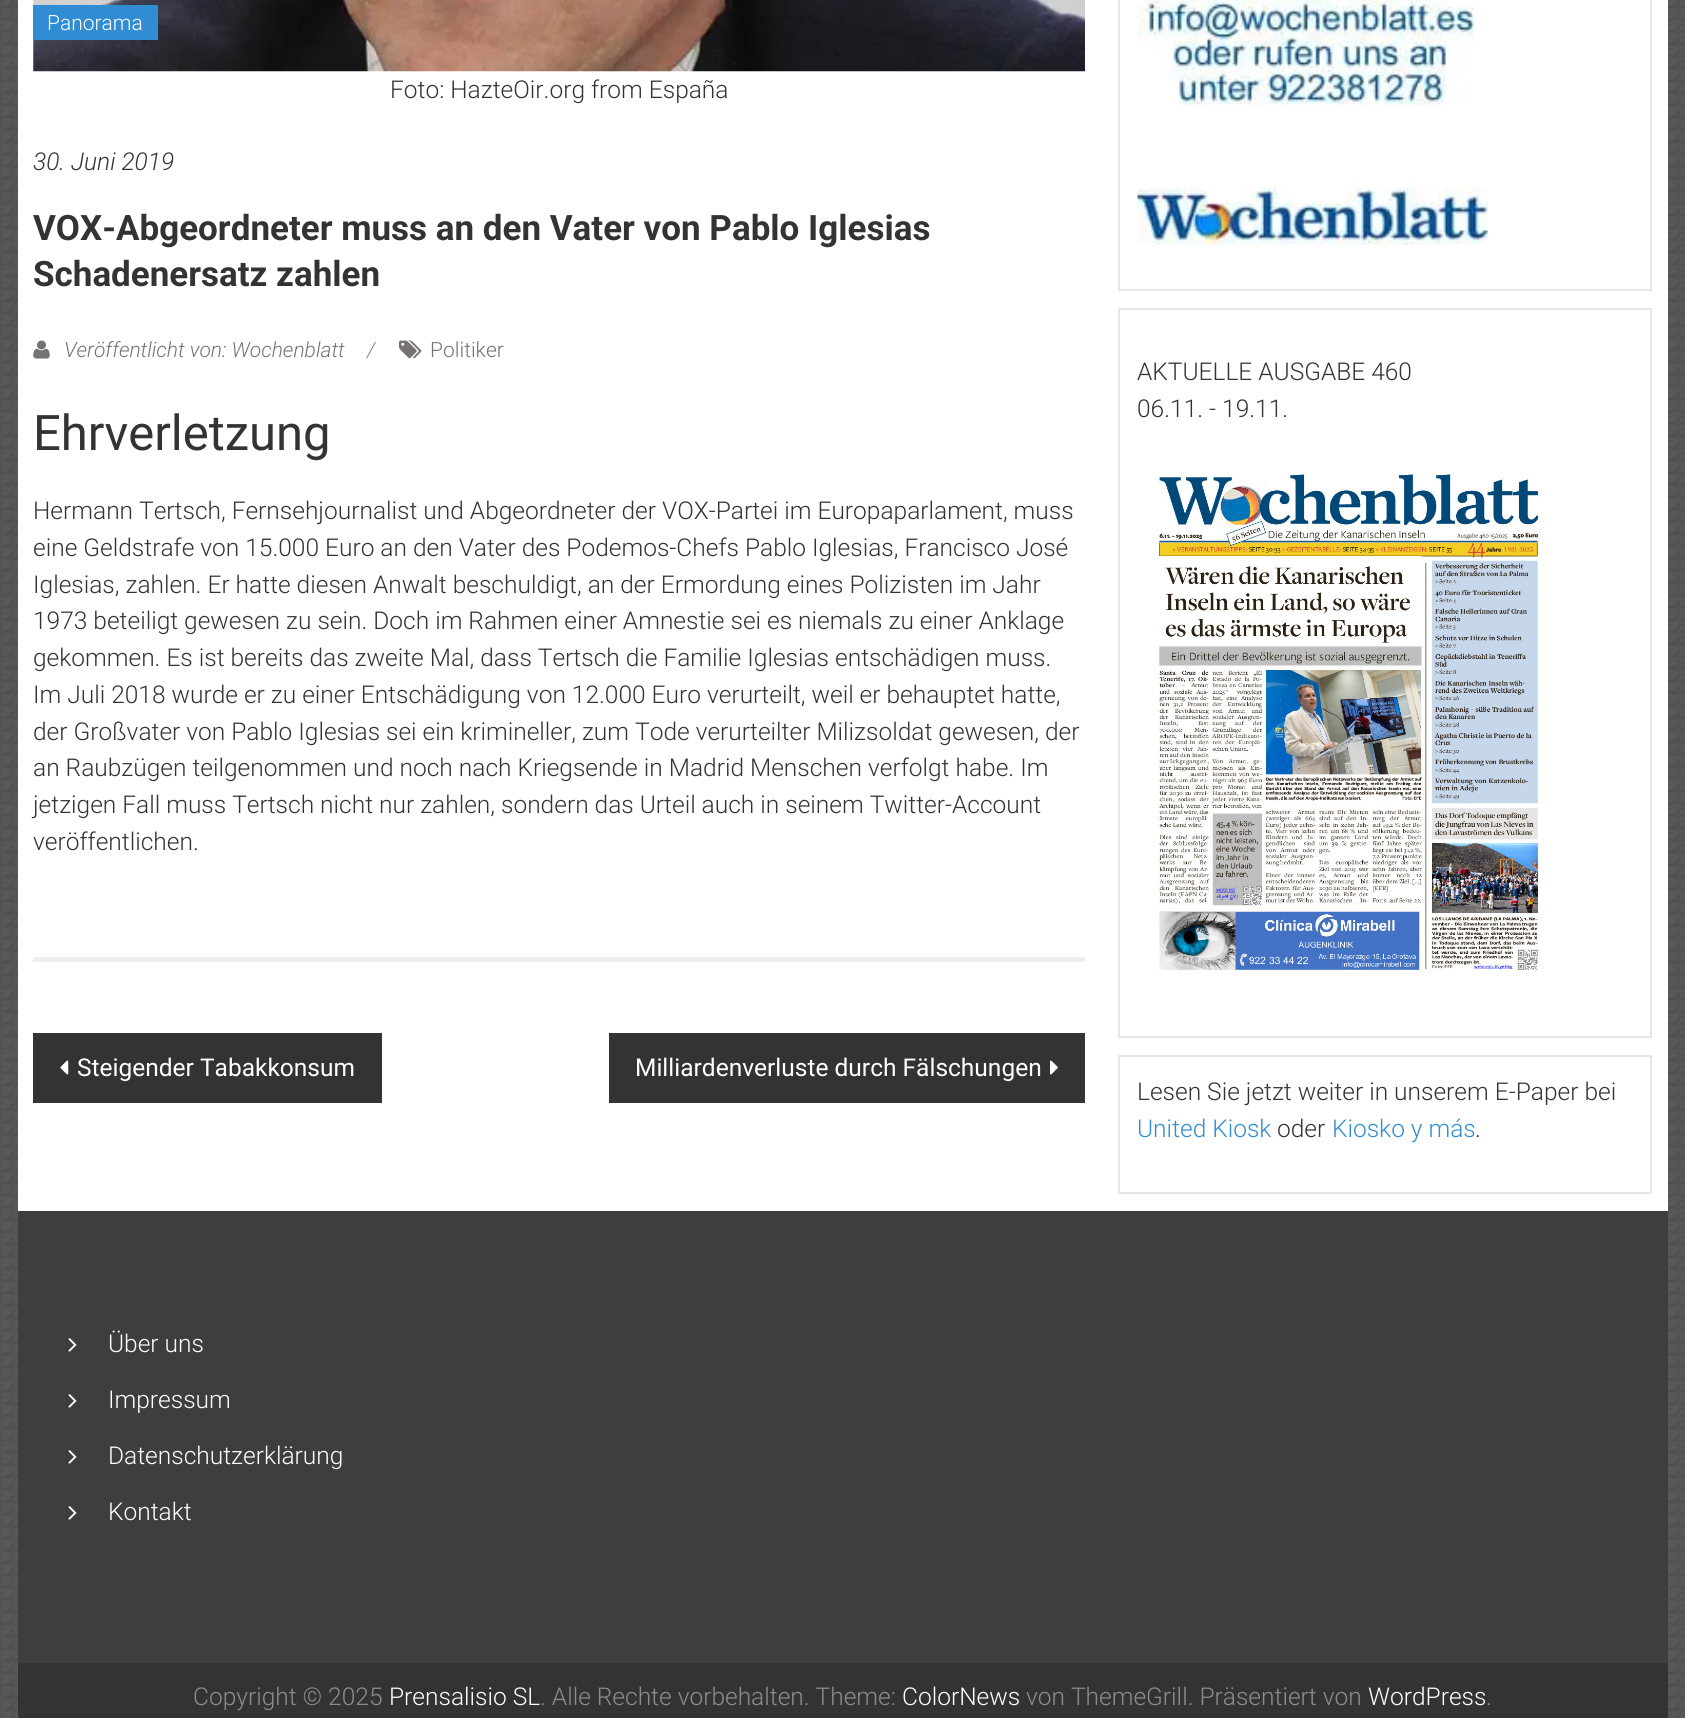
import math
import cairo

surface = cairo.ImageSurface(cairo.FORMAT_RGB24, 1685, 1718)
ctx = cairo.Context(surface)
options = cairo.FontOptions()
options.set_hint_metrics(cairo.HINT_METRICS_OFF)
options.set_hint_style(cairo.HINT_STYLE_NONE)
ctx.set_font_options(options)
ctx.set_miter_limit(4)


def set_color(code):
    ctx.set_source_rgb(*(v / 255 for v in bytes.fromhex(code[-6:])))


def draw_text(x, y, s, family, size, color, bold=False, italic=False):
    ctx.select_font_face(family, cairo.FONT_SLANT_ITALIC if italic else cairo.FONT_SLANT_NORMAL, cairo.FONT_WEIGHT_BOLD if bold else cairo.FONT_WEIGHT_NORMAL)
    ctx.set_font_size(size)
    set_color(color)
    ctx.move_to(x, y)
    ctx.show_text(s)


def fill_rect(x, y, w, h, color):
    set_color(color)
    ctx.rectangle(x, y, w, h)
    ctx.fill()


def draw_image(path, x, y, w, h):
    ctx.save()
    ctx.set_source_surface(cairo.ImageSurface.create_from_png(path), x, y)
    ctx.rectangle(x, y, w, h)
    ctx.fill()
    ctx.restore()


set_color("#ffffff")
ctx.paint()
draw_image("assets/img1.png", 0, 0, 1685, 1718)
fill_rect(18, 0, 1650, 1211, "#ffffff")
fill_rect(33, 957, 1052, 5, "#eeeeee")
draw_image("assets/img2.png", 33, 0, 1052, 72)
fill_rect(33, 5, 125, 35, "#308dd3")
draw_text(47, 30, "Panorama", "Roboto Light", 21, "#ffffff")
draw_text(390, 98, "Foto: HazteOir.org from España", "Roboto Light", 24.5, "#333333")
draw_text(33, 170, "30. Juni 2019", "Roboto Light", 24.5, "#333333", italic=True)
draw_text(33, 240, "VOX-Abgeordneter muss an den Vater von Pablo Iglesias", "Roboto", 35, "#333333", bold=True)
draw_text(33, 286, "Schadenersatz zahlen", "Roboto", 35, "#333333", bold=True)
draw_image("assets/img3.png", 33, 340, 17, 19)
draw_text(64, 357, "Veröffentlicht von: Wochenblatt", "Roboto Light", 21, "#767272", italic=True)
draw_text(367, 357, "/", "Roboto Light", 21, "#808080", italic=True)
draw_image("assets/img4.png", 399, 340, 23, 19)
draw_text(430, 357, "Politiker", "Roboto Light", 21, "#767272")
draw_text(33, 450, "Ehrverletzung", "Roboto", 49, "#333333")
draw_text(33, 519, "Hermann Tertsch, Fernsehjournalist und Abgeordneter der VOX-Partei im Europaparlament, muss", "Roboto Light", 24.5, "#333333")
draw_text(33, 556, "eine Geldstrafe von 15.000 Euro an den Vater des Podemos-Chefs Pablo Iglesias, Francisco José", "Roboto Light", 24.5, "#333333")
draw_text(33, 593, "Iglesias, zahlen. Er hatte diesen Anwalt beschuldigt, an der Ermordung eines Polizisten im Jahr", "Roboto Light", 24.5, "#333333")
draw_text(33, 629, "1973 beteiligt gewesen zu sein. Doch im Rahmen einer Amnestie sei es niemals zu einer Anklage", "Roboto Light", 24.5, "#333333")
draw_text(33, 666, "gekommen. Es ist bereits das zweite Mal, dass Tertsch die Familie Iglesias entschädigen muss.", "Roboto Light", 24.5, "#333333")
draw_text(33, 703, "Im Juli 2018 wurde er zu einer Entschädigung von 12.000 Euro verurteilt, weil er behauptet hatte,", "Roboto Light", 24.5, "#333333")
draw_text(33, 740, "der Großvater von Pablo Iglesias sei ein krimineller, zum Tode verurteilter Milizsoldat gewesen, der", "Roboto Light", 24.5, "#333333")
draw_text(33, 776, "an Raubzügen teilgenommen und noch nach Kriegsende in Madrid Menschen verfolgt habe. Im", "Roboto Light", 24.5, "#333333")
draw_text(33, 813, "jetzigen Fall muss Tertsch nicht nur zahlen, sondern das Urteil auch in seinem Twitter-Account", "Roboto Light", 24.5, "#333333")
draw_text(33, 850, "veröffentlichen.", "Roboto Light", 24.5, "#333333")
fill_rect(33, 1033, 349, 70, "#333333")
draw_image("assets/img5.png", 60, 1060, 9, 15)
draw_text(77, 1076, "Steigender Tabakkonsum", "Roboto", 24.5, "#ffffff")
fill_rect(609, 1033, 476, 70, "#333333")
draw_text(635, 1076, "Milliardenverluste durch Fälschungen", "Roboto", 24.5, "#ffffff")
draw_image("assets/img6.png", 1050, 1060, 8, 15)
ctx.rectangle(1119, -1, 532, 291)
set_color("#e6e6e6")
ctx.stroke()
draw_image("assets/img7.png", 1137, 0, 351, 245)
ctx.rectangle(1119, 309, 532, 728)
ctx.stroke()
draw_text(1137, 380, "AKTUELLE AUSGABE 460", "Roboto Light", 24.5, "#333333")
draw_text(1137, 417, "06.11. - 19.11.", "Roboto Light", 24.5, "#333333")
draw_image("assets/img8.png", 1158, 473, 382, 498)
ctx.rectangle(1119, 1056, 532, 137)
set_color("#e6e6e6")
ctx.stroke()
draw_text(1137, 1100, "Lesen Sie jetzt weiter in unserem E-Paper bei", "Roboto Light", 24.5, "#333333")
draw_text(1137, 1137, "United Kiosk", "Roboto Light", 24.5, "#308dd3")
draw_text(1277, 1137, "oder", "Roboto Light", 24.5, "#333333")
draw_text(1332, 1137, "Kiosko y más", "Roboto Light", 24.5, "#308dd3")
draw_text(1475, 1137, ".", "Roboto Light", 24.5, "#333333")
fill_rect(18, 1211, 1650, 452, "#3e3e3e")
draw_image("assets/img9.png", 68, 1338, 9, 14)
draw_text(108, 1352, "Über uns", "Roboto Light", 24.5, "#ffffff")
draw_image("assets/img9.png", 68, 1394, 9, 14)
draw_text(108, 1408, "Impressum", "Roboto Light", 24.5, "#ffffff")
draw_image("assets/img9.png", 68, 1450, 9, 14)
draw_text(108, 1464, "Datenschutzerklärung", "Roboto Light", 24.5, "#ffffff")
draw_image("assets/img9.png", 68, 1506, 9, 14)
draw_text(108, 1520, "Kontakt", "Roboto Light", 24.5, "#ffffff")
fill_rect(18, 1663, 1650, 55, "#333333")
draw_text(193, 1705, "Copyright © 2025", "Roboto Light", 24.5, "#8c8c8c")
draw_text(389, 1705, "Prensalisio SL", "Roboto Light", 24.5, "#ffffff")
draw_text(540, 1705, ". Alle Rechte vorbehalten. Theme:", "Roboto Light", 24.5, "#8c8c8c")
draw_text(902, 1705, "ColorNews", "Roboto Light", 24.5, "#ffffff")
draw_text(1026, 1705, "von ThemeGrill. Präsentiert von", "Roboto Light", 24.5, "#8c8c8c")
draw_text(1368, 1705, "WordPress", "Roboto Light", 24.5, "#ffffff")
draw_text(1486, 1705, ".", "Roboto Light", 24.5, "#8c8c8c")
surface.write_to_png("output.png")
